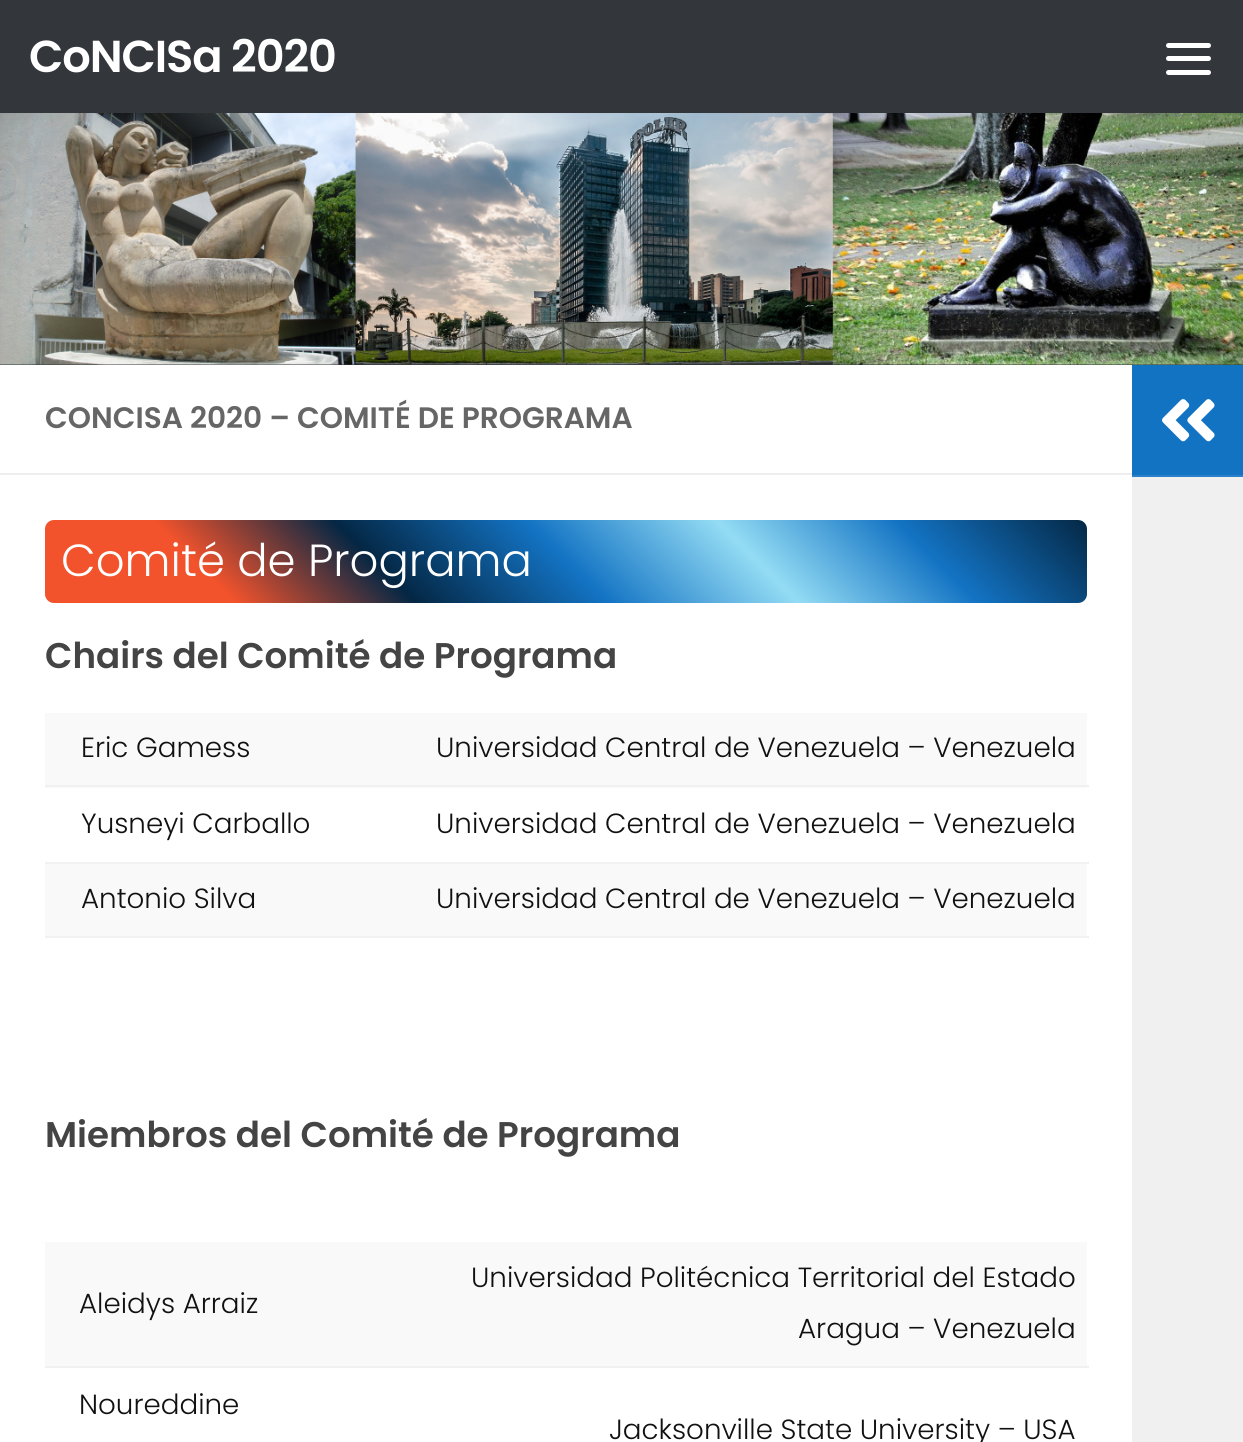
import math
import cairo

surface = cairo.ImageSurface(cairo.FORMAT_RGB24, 1243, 1442)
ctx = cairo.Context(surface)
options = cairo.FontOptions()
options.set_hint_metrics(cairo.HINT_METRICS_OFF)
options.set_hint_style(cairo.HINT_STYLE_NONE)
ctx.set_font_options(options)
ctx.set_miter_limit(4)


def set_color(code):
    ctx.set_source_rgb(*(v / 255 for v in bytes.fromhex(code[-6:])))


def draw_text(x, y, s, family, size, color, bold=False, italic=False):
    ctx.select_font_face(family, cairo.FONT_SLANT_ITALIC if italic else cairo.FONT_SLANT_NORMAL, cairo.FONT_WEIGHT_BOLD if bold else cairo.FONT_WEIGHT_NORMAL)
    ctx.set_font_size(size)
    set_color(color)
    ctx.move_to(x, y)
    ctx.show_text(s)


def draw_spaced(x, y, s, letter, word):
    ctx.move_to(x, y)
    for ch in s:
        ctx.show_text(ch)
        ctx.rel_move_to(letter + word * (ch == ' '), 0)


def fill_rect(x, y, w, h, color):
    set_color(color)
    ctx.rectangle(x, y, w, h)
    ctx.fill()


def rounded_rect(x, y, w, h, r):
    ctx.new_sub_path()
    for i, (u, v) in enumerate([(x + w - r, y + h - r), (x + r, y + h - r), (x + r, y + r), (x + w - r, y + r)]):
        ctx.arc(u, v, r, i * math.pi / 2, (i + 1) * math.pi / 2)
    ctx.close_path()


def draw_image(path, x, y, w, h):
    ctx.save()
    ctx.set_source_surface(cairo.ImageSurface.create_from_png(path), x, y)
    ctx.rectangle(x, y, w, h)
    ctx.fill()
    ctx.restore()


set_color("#ffffff")
ctx.paint()
fill_rect(0, 364, 1243, 1, "#33363b")
fill_rect(0, 0, 1243, 113, "#33363b")
ctx.select_font_face("Poppins SemiBold")
ctx.set_font_size(44.75)
set_color("#ffffff")
draw_spaced(29, 72, "CoNCISa 2020", -1.1, 0)
rounded_rect(1166, 43, 45, 5, 2.5)
ctx.fill()
rounded_rect(1166, 56, 45, 5, 2.5)
ctx.fill()
rounded_rect(1166, 70, 45, 5, 2.5)
ctx.fill()
draw_image("assets/img1.png", 0, 113, 1243, 252)
fill_rect(0, 473, 1132, 2, "#eeeeee")
draw_text(45, 428, "CONCISA 2020 – COMITÉ DE PROGRAMA", "Poppins SemiBold", 29.6, "#666666")
gradient = cairo.LinearGradient(285, 843, 847, 280)
gradient.add_color_stop_rgba(0, 0.953, 0.325, 0.173, 1)
gradient.add_color_stop_rgba(0.17, 0.953, 0.325, 0.173, 1)
gradient.add_color_stop_rgba(0.33, 0.016, 0.153, 0.267, 1)
gradient.add_color_stop_rgba(0.5, 0.075, 0.451, 0.765, 1)
gradient.add_color_stop_rgba(0.67, 0.58, 0.863, 0.957, 1)
gradient.add_color_stop_rgba(0.83, 0.075, 0.451, 0.765, 1)
gradient.add_color_stop_rgba(1, 0.016, 0.153, 0.267, 1)
ctx.set_source(gradient)
rounded_rect(45, 520, 1042, 83, 9)
ctx.fill()
draw_text(61, 576, "Comité de Programa", "Poppins Light", 45, "#ffffff")
draw_text(45, 668, "Chairs del Comité de Programa", "Poppins SemiBold", 35.7, "#444444")
fill_rect(45, 713, 1042, 75, "#f9f9f9")
draw_text(81, 757, "Eric Gamess", "Poppins Light", 27.75, "#111111")
fill_rect(45, 785, 1044, 2, "#f1f1f1")
draw_text(436, 757, "Universidad Central de Venezuela – Venezuela", "Poppins Light", 27.75, "#111111")
draw_text(81, 833, "Yusneyi Carballo", "Poppins Light", 27.75, "#111111")
fill_rect(45, 862, 1044, 2, "#f1f1f1")
draw_text(436, 833, "Universidad Central de Venezuela – Venezuela", "Poppins Light", 27.75, "#111111")
fill_rect(45, 864, 1042, 72, "#f9f9f9")
draw_text(81, 908, "Antonio Silva", "Poppins Light", 27.75, "#111111")
fill_rect(45, 936, 1044, 2, "#f1f1f1")
draw_text(436, 908, "Universidad Central de Venezuela – Venezuela", "Poppins Light", 27.75, "#111111")
draw_text(45, 1147, "Miembros del Comité de Programa", "Poppins SemiBold", 35.7, "#444444")
fill_rect(45, 1242, 1042, 124, "#f9f9f9")
draw_text(79, 1313, "Aleidys Arraiz", "Poppins Light", 27.75, "#111111")
fill_rect(45, 1366, 1044, 2, "#f1f1f1")
draw_text(471, 1287, "Universidad Politécnica Territorial del Estado", "Poppins Light", 27.75, "#111111")
draw_text(798, 1338, "Aragua – Venezuela", "Poppins Light", 27.75, "#111111")
draw_text(79, 1414, "Noureddine", "Poppins Light", 27.75, "#111111")
draw_text(609, 1439, "Jacksonville State University – USA", "Poppins Light", 27.75, "#111111")
fill_rect(1132, 365, 111, 110, "#1373c3")
fill_rect(1132, 475, 111, 2, "#2b81c9")
draw_image("assets/img2.png", 1162, 399, 53, 43)
fill_rect(1132, 477, 111, 965, "#f0f0f0")
surface.write_to_png("output.png")
